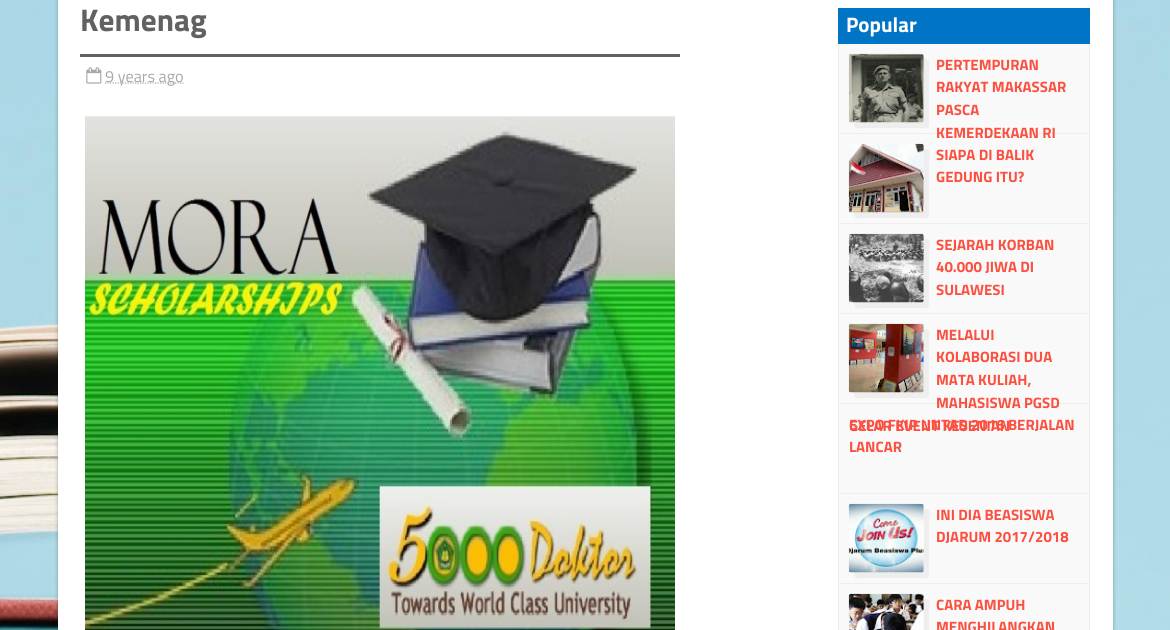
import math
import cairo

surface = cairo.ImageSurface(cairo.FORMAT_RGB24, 1170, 630)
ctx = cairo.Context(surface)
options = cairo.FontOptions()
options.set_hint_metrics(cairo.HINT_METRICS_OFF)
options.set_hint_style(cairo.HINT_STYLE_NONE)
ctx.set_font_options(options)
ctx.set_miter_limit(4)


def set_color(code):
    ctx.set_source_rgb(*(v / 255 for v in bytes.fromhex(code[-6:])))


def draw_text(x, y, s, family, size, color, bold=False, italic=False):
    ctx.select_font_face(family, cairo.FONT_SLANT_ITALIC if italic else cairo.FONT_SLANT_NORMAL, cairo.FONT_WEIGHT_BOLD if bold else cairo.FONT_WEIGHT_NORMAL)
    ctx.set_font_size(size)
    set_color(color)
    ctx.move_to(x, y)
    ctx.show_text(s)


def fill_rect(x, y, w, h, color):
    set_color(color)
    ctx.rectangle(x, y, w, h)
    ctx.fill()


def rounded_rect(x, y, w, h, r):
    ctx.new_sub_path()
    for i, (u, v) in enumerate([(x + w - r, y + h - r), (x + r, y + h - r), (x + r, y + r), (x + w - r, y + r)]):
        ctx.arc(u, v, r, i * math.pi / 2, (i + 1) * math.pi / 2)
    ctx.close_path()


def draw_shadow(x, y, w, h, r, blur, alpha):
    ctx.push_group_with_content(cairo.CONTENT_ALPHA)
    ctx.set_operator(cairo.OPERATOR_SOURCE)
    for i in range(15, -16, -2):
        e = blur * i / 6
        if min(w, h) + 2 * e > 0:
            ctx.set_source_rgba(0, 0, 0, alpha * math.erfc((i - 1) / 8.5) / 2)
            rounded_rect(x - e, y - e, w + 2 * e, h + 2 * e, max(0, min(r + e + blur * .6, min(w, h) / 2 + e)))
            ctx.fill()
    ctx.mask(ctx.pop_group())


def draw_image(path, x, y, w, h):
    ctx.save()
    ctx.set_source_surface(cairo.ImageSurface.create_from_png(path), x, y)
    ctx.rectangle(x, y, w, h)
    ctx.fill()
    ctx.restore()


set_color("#ffffff")
ctx.paint()
draw_image("assets/img1.png", 0, 0, 1170, 630)
set_color("#000000")
draw_shadow(58, -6, 1055, 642, 0, 2, 0.3)
fill_rect(58, 0, 1055, 630, "#ffffff")
fill_rect(80, 54, 600, 3, "#616161")
draw_text(80, 31, "Kemenag", "Titillium Web", 31.25, "#616161", bold=True)
draw_image("assets/img2.png", 86, 67, 16, 17)
ctx.new_path()
ctx.move_to(105, 83)
ctx.line_to(183.5, 83)
set_color("#a8a8a8")
ctx.set_line_width(1.2)
ctx.set_dash([1.25, 1.25])
ctx.stroke()
draw_text(105, 82, "9 years ago", "Titillium Web", 16.25, "#a8a8a8")
draw_image("assets/img3.png", 85, 116, 590, 514)
fill_rect(838, 8, 252, 36, "#0074c5")
draw_text(846, 32, "Popular", "Titillium Web", 21, "#ffffff", bold=True)
fill_rect(839, 44, 250, 586, "#f9f9f9")
fill_rect(1089, 44, 1, 586, "#eeeeee")
fill_rect(838, 44, 1, 586, "#eeeeee")
fill_rect(839, 133, 250, 1, "#eeeeee")
ctx.new_path()
ctx.move_to(854, 122)
ctx.curve_to(854, 131, 858, 128, 868, 128)
ctx.line_to(915, 128)
ctx.curve_to(931, 128, 929, 131, 929, 115)
ctx.line_to(929, 72)
ctx.curve_to(929, 63, 932, 59, 924, 59)
ctx.line_to(924, 120)
ctx.curve_to(924, 121, 923, 122, 921, 122)
ctx.close_path()
ctx.fill()
draw_image("assets/img4.png", 848, 53, 76, 70)
draw_text(936, 70, "PERTEMPURAN", "Titillium Web", 15, "#fc4f3f", bold=True)
draw_text(936, 92, "RAKYAT MAKASSAR", "Titillium Web", 15, "#fc4f3f", bold=True)
draw_text(936, 115, "PASCA", "Titillium Web", 15, "#fc4f3f", bold=True)
draw_text(936, 138, "KEMERDEKAAN RI", "Titillium Web", 15, "#fc4f3f", bold=True)
fill_rect(839, 223, 250, 1, "#eeeeee")
ctx.new_path()
ctx.move_to(854, 212)
ctx.curve_to(854, 221, 858, 218, 868, 218)
ctx.line_to(915, 218)
ctx.curve_to(931, 218, 929, 221, 929, 205)
ctx.line_to(929, 162)
ctx.curve_to(929, 153, 932, 149, 924, 149)
ctx.line_to(924, 210)
ctx.curve_to(924, 211, 923, 212, 921, 212)
ctx.close_path()
ctx.fill()
draw_image("assets/img5.png", 848, 143, 76, 70)
draw_text(936, 160, "SIAPA DI BALIK", "Titillium Web", 15, "#fc4f3f", bold=True)
draw_text(936, 182, "GEDUNG ITU?", "Titillium Web", 15, "#fc4f3f", bold=True)
fill_rect(839, 313, 250, 1, "#eeeeee")
ctx.new_path()
ctx.move_to(854, 302)
ctx.curve_to(854, 311, 858, 308, 868, 308)
ctx.line_to(915, 308)
ctx.curve_to(931, 308, 929, 311, 929, 295)
ctx.line_to(929, 252)
ctx.curve_to(929, 243, 932, 239, 924, 239)
ctx.line_to(924, 300)
ctx.curve_to(924, 301, 923, 302, 921, 302)
ctx.close_path()
ctx.fill()
draw_image("assets/img6.png", 848, 233, 76, 70)
draw_text(936, 250, "SEJARAH KORBAN", "Titillium Web", 15, "#fc4f3f", bold=True)
draw_text(936, 272, "40.000 JIWA DI", "Titillium Web", 15, "#fc4f3f", bold=True)
draw_text(936, 295, "SULAWESI", "Titillium Web", 15, "#fc4f3f", bold=True)
fill_rect(839, 403, 250, 1, "#eeeeee")
ctx.new_path()
ctx.move_to(854, 392)
ctx.curve_to(854, 401, 858, 398, 868, 398)
ctx.line_to(915, 398)
ctx.curve_to(931, 398, 929, 401, 929, 385)
ctx.line_to(929, 342)
ctx.curve_to(929, 333, 932, 329, 924, 329)
ctx.line_to(924, 390)
ctx.curve_to(924, 391, 923, 392, 921, 392)
ctx.close_path()
ctx.fill()
draw_image("assets/img7.png", 848, 323, 76, 70)
draw_text(936, 340, "MELALUI", "Titillium Web", 15, "#fc4f3f", bold=True)
draw_text(936, 362, "KOLABORASI DUA", "Titillium Web", 15, "#fc4f3f", bold=True)
draw_text(936, 385, "MATA KULIAH,", "Titillium Web", 15, "#fc4f3f", bold=True)
draw_text(936, 408, "MAHASISWA PGSD", "Titillium Web", 15, "#fc4f3f", bold=True)
draw_text(849, 431, "GELAR EVENT KESENIAN", "Titillium Web", 15, "#fc4f3f", bold=True)
fill_rect(839, 493, 250, 1, "#eeeeee")
draw_text(849, 430, "EXPO FKIP UNTAD 2016 BERJALAN", "Titillium Web", 15, "#fc4f3f", bold=True)
draw_text(849, 452, "LANCAR", "Titillium Web", 15, "#fc4f3f", bold=True)
fill_rect(839, 583, 250, 1, "#eeeeee")
ctx.new_path()
ctx.move_to(854, 572)
ctx.curve_to(854, 581, 858, 578, 868, 578)
ctx.line_to(915, 578)
ctx.curve_to(931, 578, 929, 581, 929, 565)
ctx.line_to(929, 522)
ctx.curve_to(929, 513, 932, 509, 924, 509)
ctx.line_to(924, 570)
ctx.curve_to(924, 571, 923, 572, 921, 572)
ctx.close_path()
ctx.fill()
draw_image("assets/img8.png", 848, 503, 76, 70)
draw_text(936, 520, "INI DIA BEASISWA", "Titillium Web", 15, "#fc4f3f", bold=True)
draw_text(936, 542, "DJARUM 2017/2018", "Titillium Web", 15, "#fc4f3f", bold=True)
draw_image("assets/img9.png", 848, 593, 76, 37)
set_color("#eeeeee")
ctx.new_path()
ctx.move_to(854, 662)
ctx.curve_to(854, 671, 858, 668, 868, 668)
ctx.line_to(915, 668)
ctx.curve_to(931, 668, 929, 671, 929, 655)
ctx.line_to(929, 612)
ctx.curve_to(929, 603, 932, 599, 924, 599)
ctx.line_to(924, 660)
ctx.curve_to(924, 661, 923, 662, 921, 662)
ctx.close_path()
ctx.fill()
draw_text(936, 610, "CARA AMPUH", "Titillium Web", 15, "#fc4f3f", bold=True)
draw_text(936, 632, "MENGHILANGKAN", "Titillium Web", 15, "#fc4f3f", bold=True)
surface.write_to_png("output.png")
